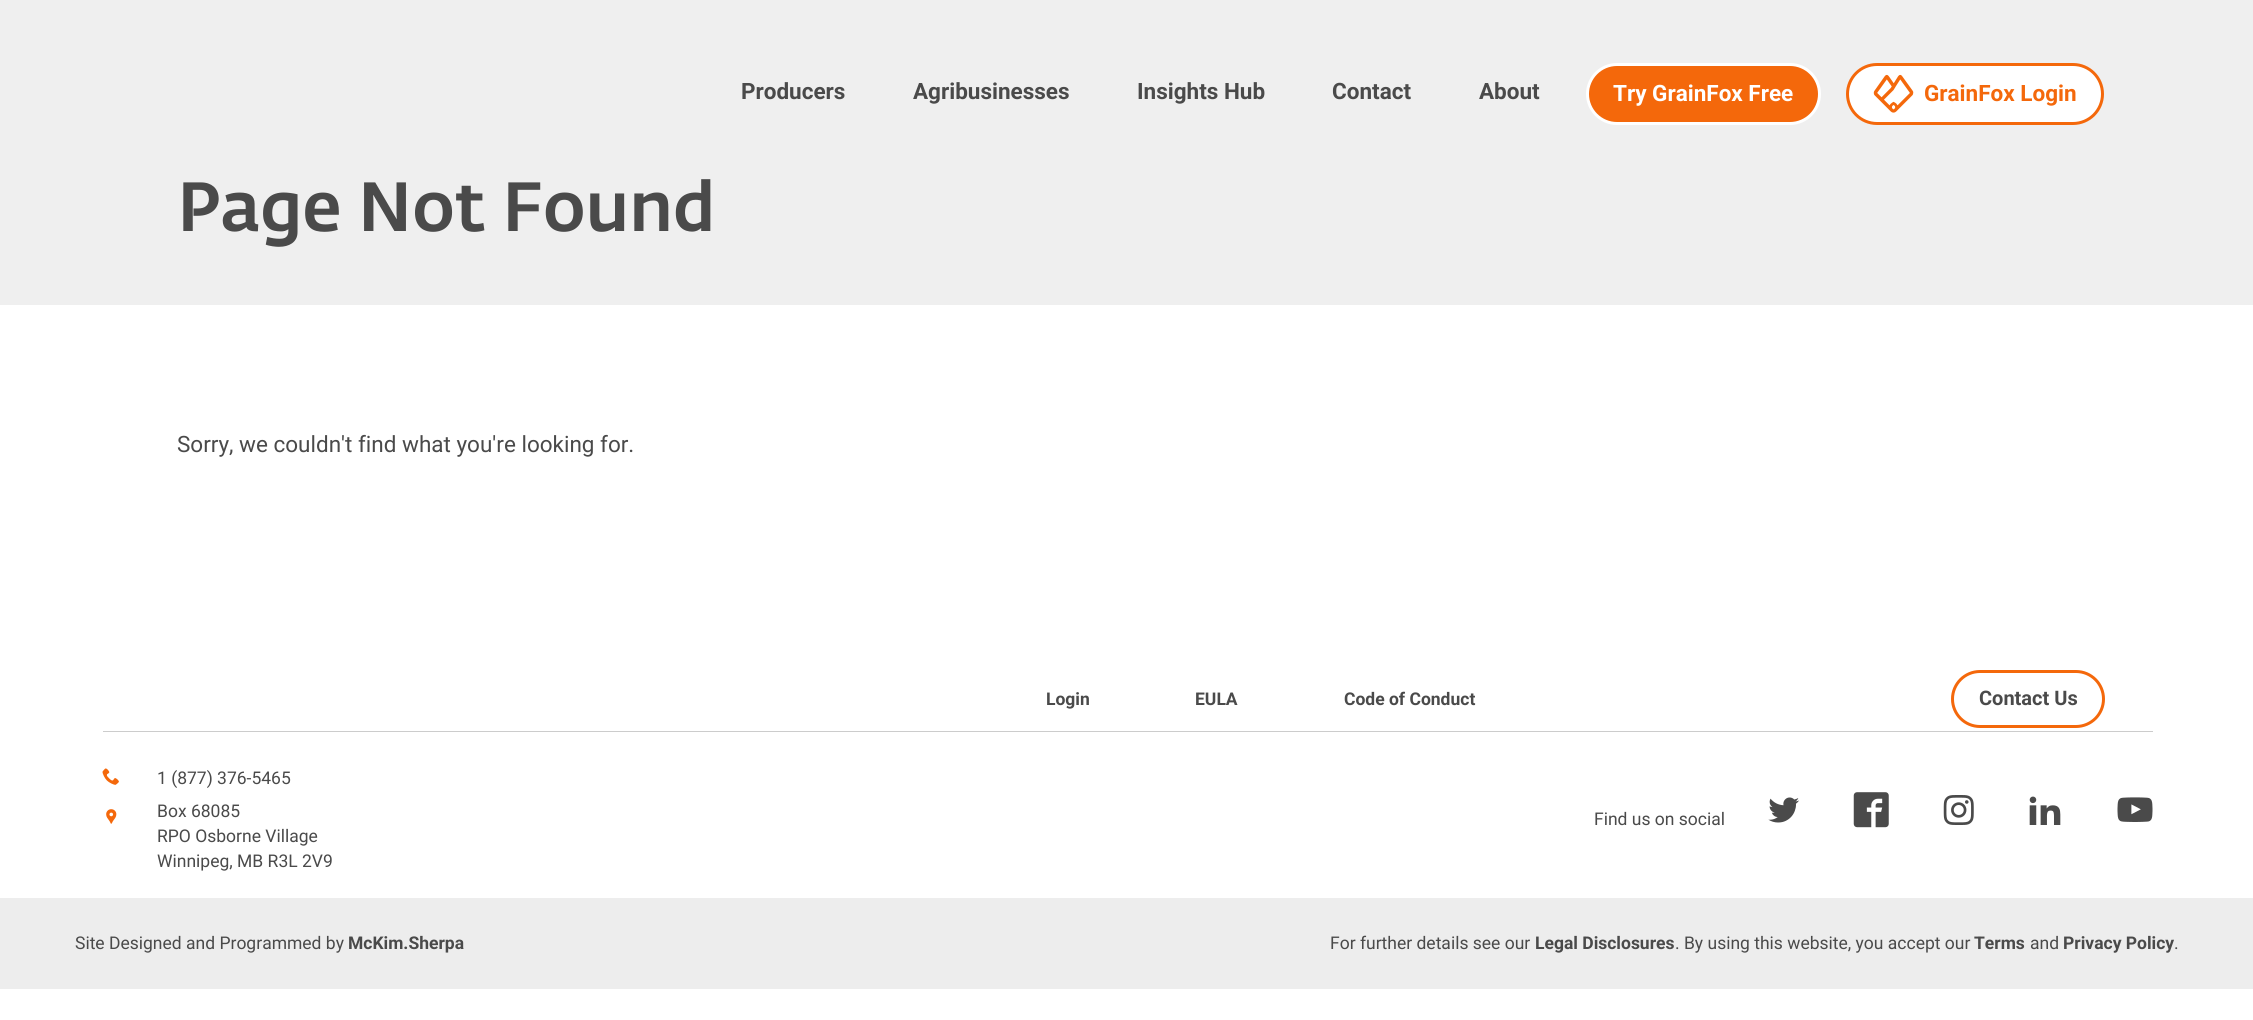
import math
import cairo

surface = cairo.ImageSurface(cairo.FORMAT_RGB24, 2253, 1020)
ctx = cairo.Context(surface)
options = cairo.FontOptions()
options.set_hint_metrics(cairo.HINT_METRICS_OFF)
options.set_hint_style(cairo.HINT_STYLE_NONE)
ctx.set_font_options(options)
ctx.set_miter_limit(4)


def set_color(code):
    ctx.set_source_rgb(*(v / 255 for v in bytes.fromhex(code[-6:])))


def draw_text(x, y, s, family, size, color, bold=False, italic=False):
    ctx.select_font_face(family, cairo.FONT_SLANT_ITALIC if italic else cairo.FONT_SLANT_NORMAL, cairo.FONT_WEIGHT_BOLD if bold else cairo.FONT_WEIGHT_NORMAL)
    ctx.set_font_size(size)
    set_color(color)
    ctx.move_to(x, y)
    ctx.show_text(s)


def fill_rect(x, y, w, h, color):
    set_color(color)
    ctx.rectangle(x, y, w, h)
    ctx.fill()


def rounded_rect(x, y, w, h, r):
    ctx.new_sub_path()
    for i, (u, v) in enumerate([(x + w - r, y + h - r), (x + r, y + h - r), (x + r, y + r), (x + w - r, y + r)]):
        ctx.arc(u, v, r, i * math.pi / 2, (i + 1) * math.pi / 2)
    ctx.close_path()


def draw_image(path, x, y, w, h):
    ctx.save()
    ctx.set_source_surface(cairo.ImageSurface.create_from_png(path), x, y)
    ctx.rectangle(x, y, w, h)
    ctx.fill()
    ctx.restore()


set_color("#ffffff")
ctx.paint()
fill_rect(0, 0, 2253, 305, "#efefef")
draw_text(741, 99, "Producers", "Roboto", 22.5, "#4a4a4a", bold=True)
draw_text(913, 99, "Agribusinesses", "Roboto", 22.5, "#4a4a4a", bold=True)
draw_text(1137, 99, "Insights Hub", "Roboto", 22.5, "#4a4a4a", bold=True)
draw_text(1332, 99, "Contact", "Roboto", 22.5, "#4a4a4a", bold=True)
draw_text(1479, 99, "About", "Roboto", 22.5, "#4a4a4a", bold=True)
set_color("#f4680b")
rounded_rect(1587.5, 64.5, 232, 59, 29.5)
ctx.fill_preserve()
set_color("#ffffff")
ctx.set_line_width(3)
ctx.stroke()
draw_text(1613, 101, "Try GrainFox Free", "Roboto", 22.5, "#ffffff", bold=True)
rounded_rect(1847.5, 64.5, 255, 59, 29.5)
ctx.fill_preserve()
set_color("#f4680b")
ctx.stroke()
draw_image("assets/img1.png", 1873, 74, 41, 39)
draw_text(1924, 101, "GrainFox Login", "Roboto", 22.5, "#f4680b", bold=True)
draw_text(177, 231, "Page Not Found", "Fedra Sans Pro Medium", 68.75, "#4a4a4a")
draw_text(177, 452, "Sorry, we couldn't find what you're looking for.", "Roboto", 22.5, "#4a4a4a")
draw_text(1046, 705, "Login", "Roboto", 17.5, "#4a4a4a", bold=True)
draw_text(1195, 705, "EULA", "Roboto", 17.5, "#4a4a4a", bold=True)
draw_text(1344, 705, "Code of Conduct", "Roboto", 17.5, "#4a4a4a", bold=True)
rounded_rect(1952.5, 671.5, 151, 55, 27.5)
set_color("#f4680b")
ctx.stroke()
draw_text(1979, 705, "Contact Us", "Roboto", 20, "#4a4a4a", bold=True)
fill_rect(103, 731, 2050, 1, "#cccccc")
draw_image("assets/img2.png", 102, 768, 17, 17)
draw_text(157, 784, "1 (877) 376-5465", "Roboto", 17.5, "#4a4a4a")
draw_image("assets/img3.png", 106, 809, 11, 15)
draw_text(157, 817, "Box 68085", "Roboto", 17.5, "#4a4a4a")
draw_text(157, 842, "RPO Osborne Village", "Roboto", 17.5, "#4a4a4a")
draw_text(157, 867, "Winnipeg, MB R3L 2V9", "Roboto", 17.5, "#4a4a4a")
draw_text(1594, 825, "Find us on social", "Roboto", 17.5, "#4a4a4a")
draw_image("assets/img4.png", 1768, 797, 31, 26)
draw_image("assets/img5.png", 1853, 792, 36, 36)
draw_image("assets/img6.png", 1943, 795, 31, 30)
draw_image("assets/img7.png", 2029, 796, 32, 29)
draw_image("assets/img8.png", 2117, 797, 36, 25)
fill_rect(0, 898, 2253, 91, "#ededed")
draw_text(75, 949, "Site Designed and Programmed by", "Roboto", 17.5, "#4a4a4a")
draw_text(348, 949, "McKim.Sherpa", "Roboto", 17.5, "#4a4a4a", bold=True)
draw_text(1330, 949, "For further details see our", "Roboto", 17.5, "#4a4a4a")
draw_text(1535, 949, "Legal Disclosures", "Roboto", 17.5, "#4a4a4a", bold=True)
draw_text(1675, 949, ". By using this website, you accept our", "Roboto", 17.5, "#4a4a4a")
draw_text(1974, 949, "Terms", "Roboto", 17.5, "#4a4a4a", bold=True)
draw_text(2030, 949, "and", "Roboto", 17.5, "#4a4a4a")
draw_text(2063, 949, "Privacy Policy", "Roboto", 17.5, "#4a4a4a", bold=True)
draw_text(2174, 949, ".", "Roboto", 17.5, "#4a4a4a")
surface.write_to_png("output.png")
